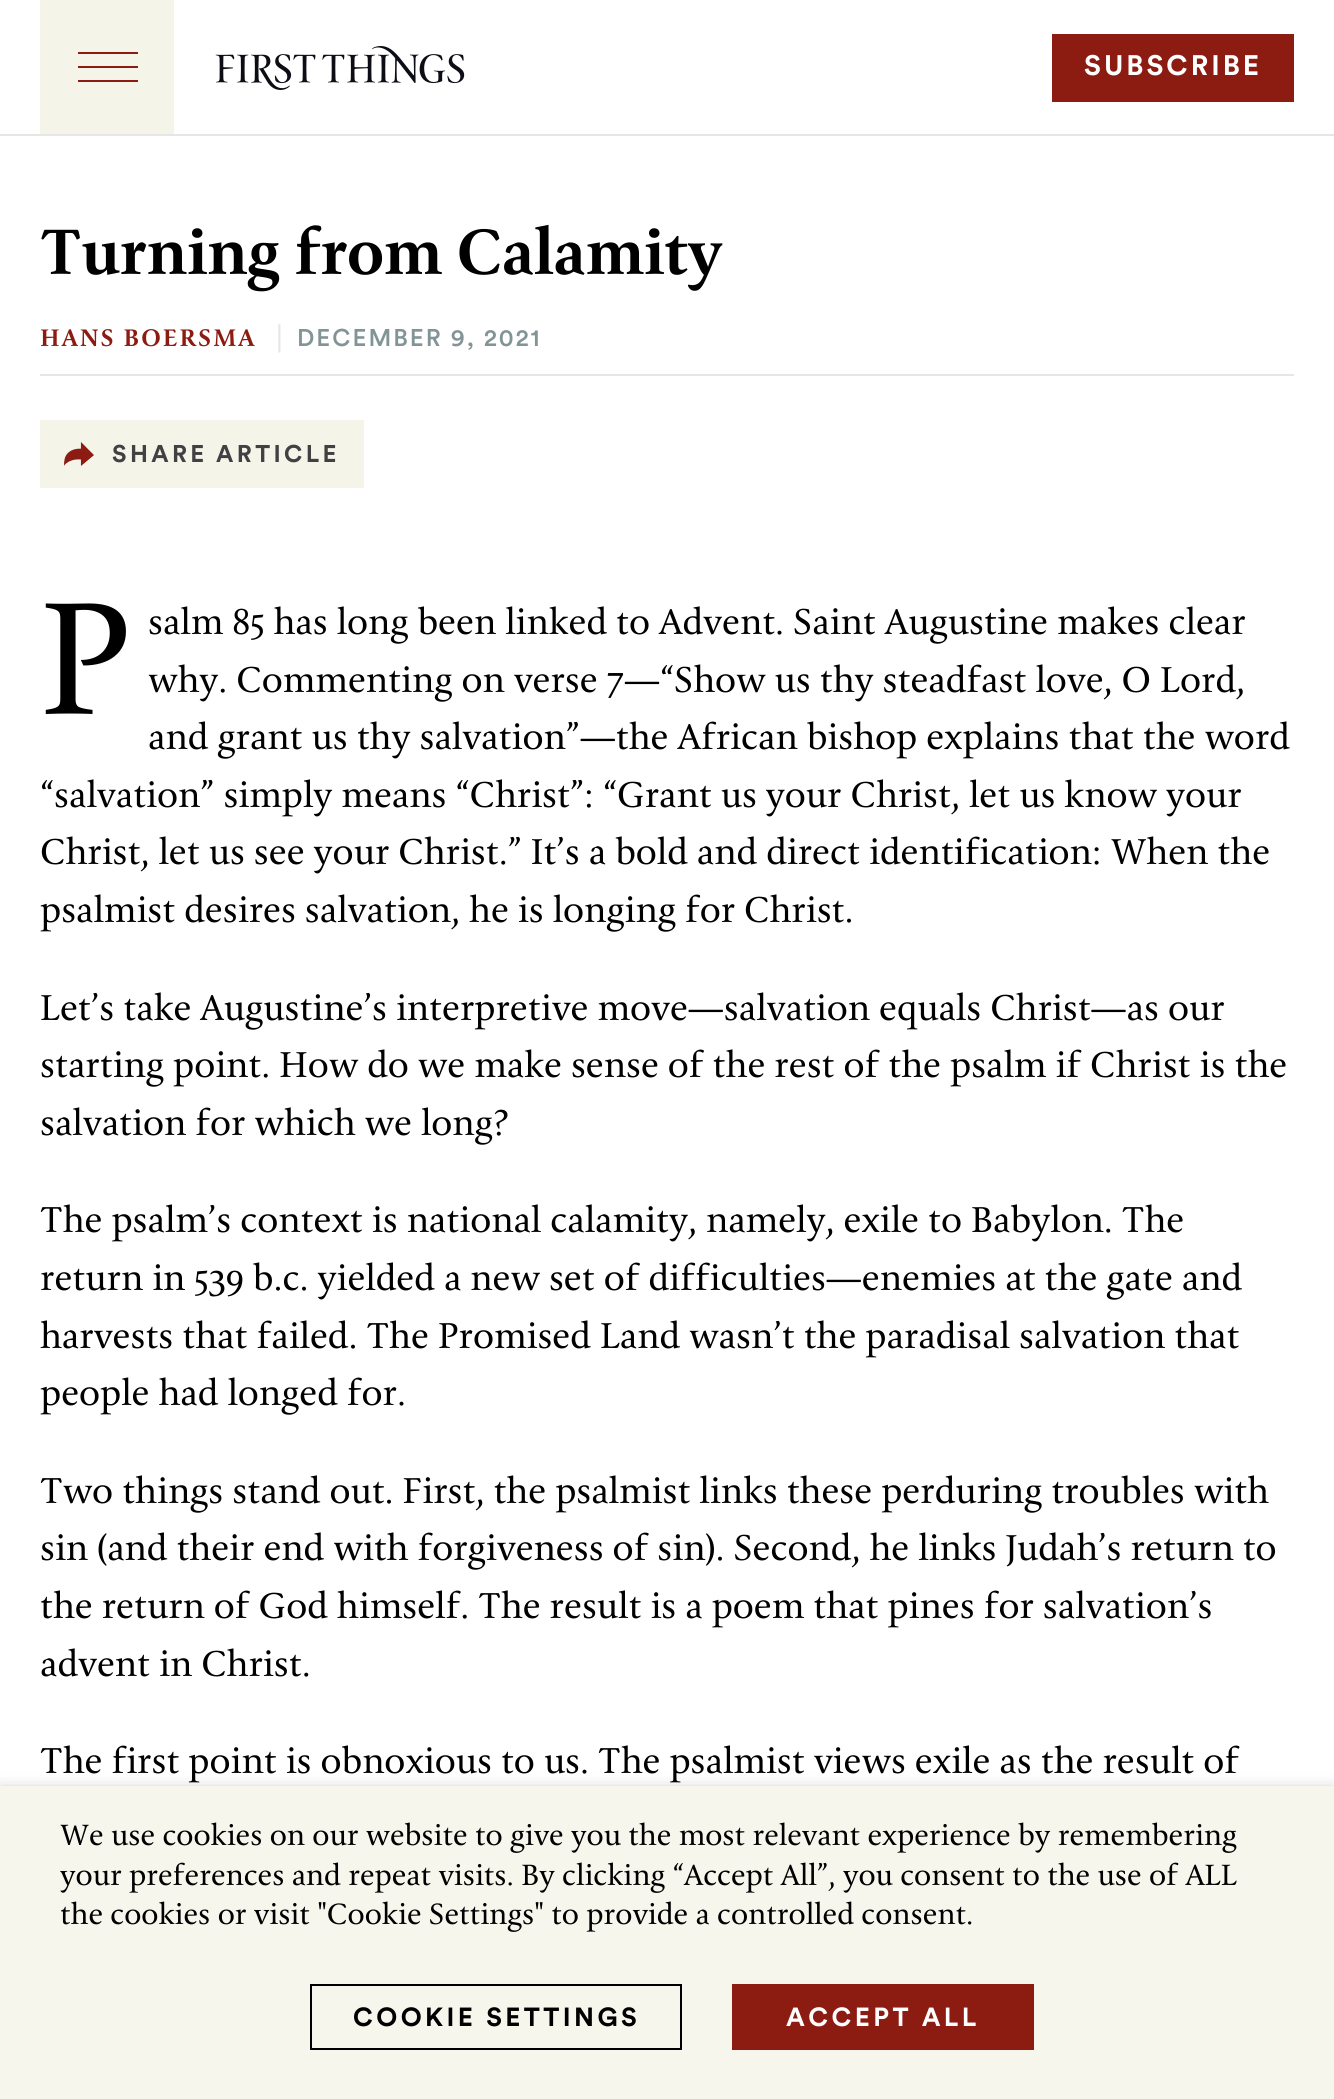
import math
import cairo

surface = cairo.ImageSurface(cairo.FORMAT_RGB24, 1334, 2099)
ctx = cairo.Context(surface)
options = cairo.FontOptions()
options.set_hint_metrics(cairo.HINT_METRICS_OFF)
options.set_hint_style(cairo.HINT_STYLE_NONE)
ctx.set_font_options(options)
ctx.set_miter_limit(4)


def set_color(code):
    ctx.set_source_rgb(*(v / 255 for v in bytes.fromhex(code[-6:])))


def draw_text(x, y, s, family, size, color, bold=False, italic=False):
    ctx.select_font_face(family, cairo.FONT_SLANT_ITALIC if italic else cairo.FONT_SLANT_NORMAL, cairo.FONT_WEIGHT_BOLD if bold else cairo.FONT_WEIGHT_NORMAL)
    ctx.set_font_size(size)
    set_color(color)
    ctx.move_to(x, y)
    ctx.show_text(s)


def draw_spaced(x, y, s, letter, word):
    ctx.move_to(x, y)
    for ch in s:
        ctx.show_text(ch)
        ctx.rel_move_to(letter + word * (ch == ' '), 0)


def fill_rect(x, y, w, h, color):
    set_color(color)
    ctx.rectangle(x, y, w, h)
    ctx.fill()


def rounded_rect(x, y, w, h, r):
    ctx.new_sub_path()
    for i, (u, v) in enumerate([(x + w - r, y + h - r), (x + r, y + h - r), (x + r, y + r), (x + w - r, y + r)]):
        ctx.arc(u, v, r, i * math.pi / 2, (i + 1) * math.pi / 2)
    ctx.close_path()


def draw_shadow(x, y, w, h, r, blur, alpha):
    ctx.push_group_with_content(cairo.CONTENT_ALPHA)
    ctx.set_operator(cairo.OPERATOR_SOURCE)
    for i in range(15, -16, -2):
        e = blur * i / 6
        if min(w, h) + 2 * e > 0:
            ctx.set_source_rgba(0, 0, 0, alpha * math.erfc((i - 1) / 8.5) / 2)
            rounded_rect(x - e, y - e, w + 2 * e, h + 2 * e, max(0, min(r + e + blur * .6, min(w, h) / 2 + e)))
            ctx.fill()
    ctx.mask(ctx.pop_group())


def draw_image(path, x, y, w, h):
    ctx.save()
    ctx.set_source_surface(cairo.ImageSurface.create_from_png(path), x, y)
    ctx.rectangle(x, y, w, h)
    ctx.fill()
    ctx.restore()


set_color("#ffffff")
ctx.paint()
fill_rect(0, 134, 1334, 2, "#e6e6e6")
fill_rect(40, 0, 134, 134, "#f4f4e9")
fill_rect(78, 66, 60, 2, "#8c1b11")
fill_rect(78, 52, 60, 2, "#8c1b11")
fill_rect(78, 80, 60, 2, "#8c1b11")
draw_image("assets/img1.png", 215, 46, 250, 44)
fill_rect(1052, 34, 242, 68, "#8c1b11")
ctx.select_font_face("Circular", cairo.FONT_SLANT_NORMAL, cairo.FONT_WEIGHT_BOLD)
ctx.set_font_size(28)
set_color("#ffffff")
draw_spaced(1084, 75, "SUBSCRIBE", 3, 0)
ctx.select_font_face("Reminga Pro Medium")
ctx.set_font_size(64)
set_color("#000000")
draw_spaced(40, 274, "Turning from Calamity", -0.6, 0)
fill_rect(40, 374, 1254, 2, "#e6e6e6")
ctx.set_font_size(24)
set_color("#8c1b11")
draw_spaced(40, 346, "HANS BOERSMA", 2, 0)
set_color("#e6e6e6")
draw_spaced(276, 346, "|", 2, 0)
ctx.select_font_face("Circular Medium")
set_color("#829496")
draw_spaced(297, 346, "DECEMBER 9, 2021", 2, 0)
fill_rect(40, 420, 324, 68, "#f4f4e9")
draw_image("assets/img2.png", 64, 442, 30, 24)
ctx.select_font_face("Circular", cairo.FONT_SLANT_NORMAL, cairo.FONT_WEIGHT_BOLD)
set_color("#414042")
draw_spaced(112, 462, "SHARE", 3.4, 0)
draw_spaced(216, 462, "ARTICLE", 3.4, 0)
draw_text(40, 714, "P", "Reminga Pro", 160, "#000000")
draw_text(148, 634, "salm 85 has long been linked to Advent. Saint Augustine makes clear", "Reminga Pro", 36, "#000000")
draw_text(148, 692, "why. Commenting on verse 7—“Show us thy steadfast love, O Lord,", "Reminga Pro", 36, "#000000")
draw_text(148, 749, "and grant us thy salvation”—the African bishop explains that the word", "Reminga Pro", 36, "#000000")
draw_text(40, 807, "“salvation” simply means “Christ”: “Grant us your Christ, let us know your", "Reminga Pro", 36, "#000000")
draw_text(40, 864, "Christ, let us see your Christ.” It’s a bold and direct identification: When the", "Reminga Pro", 36, "#000000")
draw_text(40, 922, "psalmist desires salvation, he is longing for Christ.", "Reminga Pro", 36, "#000000")
draw_text(40, 1020, "Let’s take Augustine’s interpretive move—salvation equals Christ—as our", "Reminga Pro", 36, "#000000")
draw_text(40, 1077, "starting point. How do we make sense of the rest of the psalm if Christ is the", "Reminga Pro", 36, "#000000")
draw_text(40, 1135, "salvation for which we long?", "Reminga Pro", 36, "#000000")
draw_text(40, 1232, "The psalm’s context is national calamity, namely, exile to Babylon. The", "Reminga Pro", 36, "#000000")
draw_text(40, 1290, "return in 539 b.c. yielded a new set of difficulties—enemies at the gate and", "Reminga Pro", 36, "#000000")
draw_text(40, 1348, "harvests that failed. The Promised Land wasn’t the paradisal salvation that", "Reminga Pro", 36, "#000000")
draw_text(40, 1405, "people had longed for.", "Reminga Pro", 36, "#000000")
draw_text(40, 1503, "Two things stand out. First, the psalmist links these perduring troubles with", "Reminga Pro", 36, "#000000")
draw_text(40, 1560, "sin (and their end with forgiveness of sin). Second, he links Judah’s return to", "Reminga Pro", 36, "#000000")
draw_text(40, 1618, "the return of God himself. The result is a poem that pines for salvation’s", "Reminga Pro", 36, "#000000")
draw_text(40, 1676, "advent in Christ.", "Reminga Pro", 36, "#000000")
draw_text(40, 1773, "The first point is obnoxious to us. The psalmist views exile as the result of", "Reminga Pro", 36, "#000000")
set_color("#000000")
draw_shadow(0, 1796, 1334, 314, 0, 10, 0.5)
fill_rect(0, 1786, 1334, 313, "#f6f6ed")
draw_text(60, 1845, "We use cookies on our website to give you the most relevant experience by remembering", "Reminga Pro", 29.35, "#000000")
draw_text(60, 1885, "your preferences and repeat visits. By clicking “Accept All”, you consent to the use of ALL", "Reminga Pro", 29.35, "#000000")
draw_text(60, 1924, "the cookies or visit \"Cookie Settings\" to provide a controlled consent.", "Reminga Pro", 29.35, "#000000")
ctx.rectangle(311, 1985, 370, 64)
ctx.stroke()
ctx.select_font_face("Circular", cairo.FONT_SLANT_NORMAL, cairo.FONT_WEIGHT_BOLD)
ctx.set_font_size(26)
draw_spaced(353, 2026, "COOKIE SETTINGS", 3.4, 0)
fill_rect(732, 1984, 302, 66, "#8c1b11")
set_color("#ffffff")
draw_spaced(786, 2026, "ACCEPT ALL", 3.4, 0)
surface.write_to_png("output.png")
